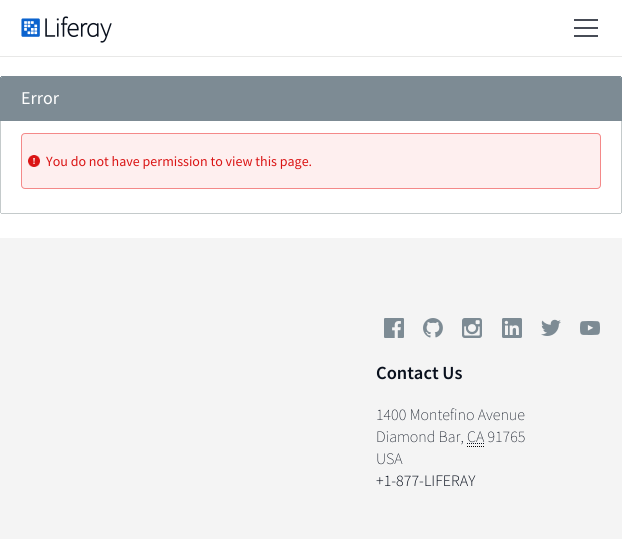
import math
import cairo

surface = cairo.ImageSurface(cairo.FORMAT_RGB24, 622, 539)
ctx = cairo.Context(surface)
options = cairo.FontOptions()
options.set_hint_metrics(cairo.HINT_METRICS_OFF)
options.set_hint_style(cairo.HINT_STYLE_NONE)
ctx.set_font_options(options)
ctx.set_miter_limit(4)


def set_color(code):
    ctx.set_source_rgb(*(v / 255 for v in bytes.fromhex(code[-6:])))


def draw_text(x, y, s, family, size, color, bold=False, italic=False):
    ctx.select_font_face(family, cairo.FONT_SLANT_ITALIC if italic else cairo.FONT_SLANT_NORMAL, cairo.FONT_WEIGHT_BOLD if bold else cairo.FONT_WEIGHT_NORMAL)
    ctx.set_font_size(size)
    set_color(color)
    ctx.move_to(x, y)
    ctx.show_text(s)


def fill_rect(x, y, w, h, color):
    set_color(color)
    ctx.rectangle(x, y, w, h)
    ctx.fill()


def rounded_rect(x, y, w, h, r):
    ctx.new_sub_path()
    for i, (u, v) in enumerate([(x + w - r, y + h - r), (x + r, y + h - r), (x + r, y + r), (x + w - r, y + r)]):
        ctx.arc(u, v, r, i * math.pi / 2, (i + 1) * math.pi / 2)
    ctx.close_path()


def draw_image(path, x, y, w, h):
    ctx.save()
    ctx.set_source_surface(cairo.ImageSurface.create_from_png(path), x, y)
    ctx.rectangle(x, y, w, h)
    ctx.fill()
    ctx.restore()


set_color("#ffffff")
ctx.paint()
fill_rect(0, 56, 622, 1, "#e8e8e7")
draw_image("assets/img1.png", 21, 16, 91, 27)
fill_rect(574, 19, 24, 2, "#474c56")
fill_rect(574, 27, 24, 2, "#474c56")
fill_rect(574, 35, 24, 2, "#474c56")
set_color("#7d8b94")
ctx.new_path()
ctx.move_to(2, 77)
ctx.line_to(620, 77)
ctx.curve_to(620.5, 77, 621, 77.5, 621, 78)
ctx.line_to(621, 121)
ctx.line_to(1, 121)
ctx.line_to(1, 78)
ctx.curve_to(1, 77.5, 1.5, 77, 2, 77)
ctx.close_path()
ctx.fill()
fill_rect(1, 76, 620, 1, "#7d8b94")
fill_rect(621, 77, 1, 44, "#7d8b94")
fill_rect(0, 77, 1, 44, "#7d8b94")
draw_text(21, 104, "Error", "Source Sans Pro", 18, "#ffffff")
fill_rect(621, 121, 1, 92, "#c4cacb")
fill_rect(1, 213, 620, 1, "#c4cacb")
fill_rect(0, 121, 1, 92, "#c4cacb")
set_color("#feefef")
rounded_rect(21, 133, 580, 56, 4)
ctx.fill()
draw_image("assets/img2.png", 28, 155, 12, 12)
rounded_rect(21.5, 133.5, 579, 55, 3.5)
set_color("#f48989")
ctx.set_line_width(1)
ctx.stroke()
draw_text(46, 166, "You do not have permission to view this page.", "Source Sans Pro", 14, "#da1414")
fill_rect(0, 238, 622, 301, "#f4f4f4")
draw_image("assets/img3.png", 384, 318, 20, 20)
draw_image("assets/img4.png", 423, 318, 20, 20)
draw_image("assets/img5.png", 462, 318, 20, 20)
draw_image("assets/img6.png", 502, 318, 20, 20)
draw_image("assets/img7.png", 541, 319, 20, 17)
draw_image("assets/img8.png", 580, 321, 20, 14)
draw_text(376, 379, "Contact Us", "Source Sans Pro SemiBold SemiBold", 18.5, "#09101d")
draw_text(376, 420, "1400 Montefino Avenue", "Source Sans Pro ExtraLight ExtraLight", 16, "#09101d")
draw_text(376, 442, "Diamond Bar, CA 91765", "Source Sans Pro ExtraLight ExtraLight", 16, "#09101d")
ctx.new_path()
ctx.move_to(467, 443.5)
ctx.line_to(484.5, 443.5)
ctx.set_dash([1, 1])
ctx.stroke()
ctx.new_path()
ctx.move_to(467, 446.5)
ctx.line_to(484, 446.5)
set_color("#000000")
ctx.stroke()
draw_text(376, 464, "USA", "Source Sans Pro ExtraLight ExtraLight", 16, "#09101d")
draw_text(376, 486, "+1-877-LIFERAY", "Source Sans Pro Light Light", 16, "#09101d")
surface.write_to_png("output.png")
